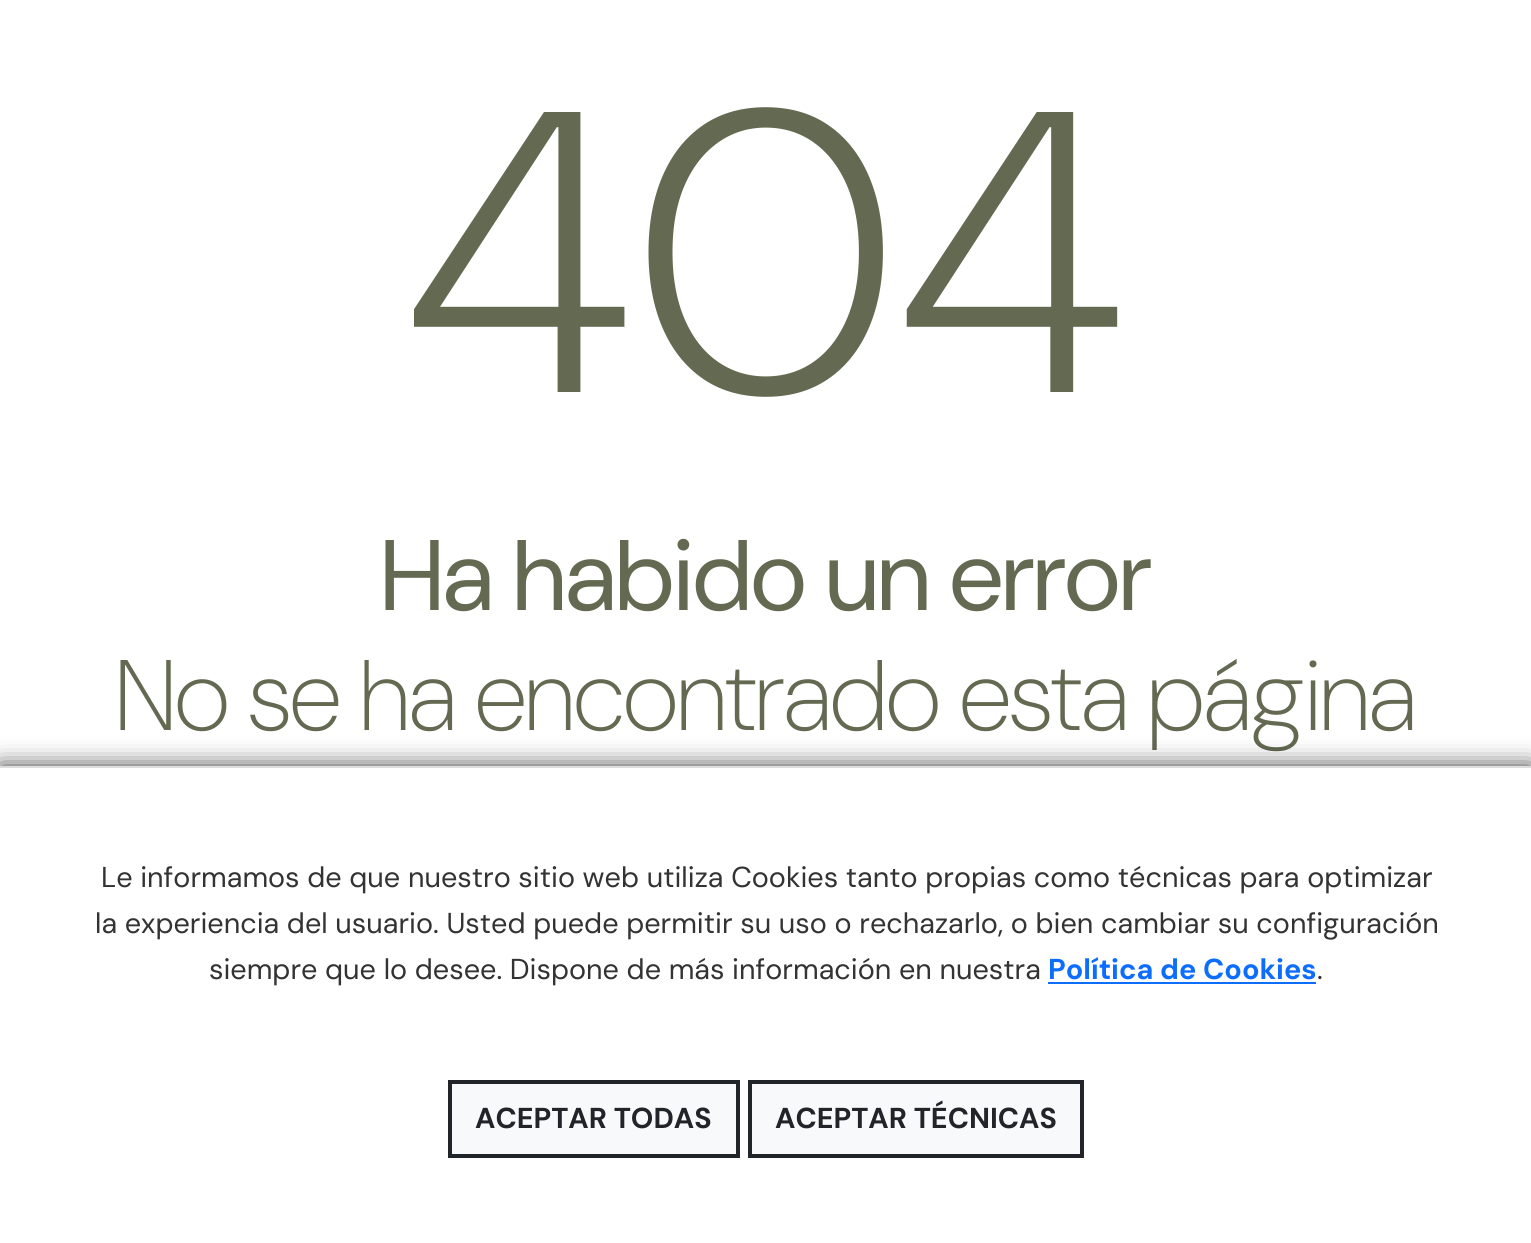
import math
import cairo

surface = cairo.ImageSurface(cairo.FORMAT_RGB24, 1531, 1243)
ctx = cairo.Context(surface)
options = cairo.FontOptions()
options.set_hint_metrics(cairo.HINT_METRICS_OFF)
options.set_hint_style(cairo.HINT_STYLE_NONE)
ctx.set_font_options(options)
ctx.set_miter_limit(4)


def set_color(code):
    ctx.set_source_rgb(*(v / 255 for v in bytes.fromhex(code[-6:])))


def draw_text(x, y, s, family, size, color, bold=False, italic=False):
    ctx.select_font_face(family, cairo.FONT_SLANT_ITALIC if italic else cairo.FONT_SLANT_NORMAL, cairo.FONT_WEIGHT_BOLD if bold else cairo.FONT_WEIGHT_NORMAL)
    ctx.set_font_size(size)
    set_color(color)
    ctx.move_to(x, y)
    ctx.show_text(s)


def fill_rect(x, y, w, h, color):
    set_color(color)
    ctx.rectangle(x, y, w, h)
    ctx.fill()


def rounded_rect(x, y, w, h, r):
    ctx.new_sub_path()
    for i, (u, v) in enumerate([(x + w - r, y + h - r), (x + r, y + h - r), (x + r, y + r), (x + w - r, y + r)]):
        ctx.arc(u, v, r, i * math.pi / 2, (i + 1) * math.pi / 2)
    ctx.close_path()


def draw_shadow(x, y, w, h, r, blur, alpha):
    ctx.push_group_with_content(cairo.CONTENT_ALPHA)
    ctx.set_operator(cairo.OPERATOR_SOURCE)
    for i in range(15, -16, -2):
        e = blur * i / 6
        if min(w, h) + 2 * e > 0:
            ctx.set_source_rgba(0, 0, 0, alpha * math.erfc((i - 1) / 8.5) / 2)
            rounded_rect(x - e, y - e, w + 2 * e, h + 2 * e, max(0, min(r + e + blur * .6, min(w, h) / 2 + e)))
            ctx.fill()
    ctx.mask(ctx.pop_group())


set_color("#ffffff")
ctx.paint()
draw_text(404, 392, "404", "DM Sans ExtraLight", 400, "#636a51")
draw_text(381, 610, "Ha habido un error", "DM Sans", 100, "#636a51")
draw_text(116, 730, "No se ha encontrado esta página", "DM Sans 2 ExtraLight", 100, "#636a51")
set_color("#000000")
draw_shadow(0, 766, 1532, 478, 0, 12, 0.75)
fill_rect(0, 768, 1531, 475, "#ffffff")
fill_rect(0, 766, 1531, 2, "#dddddd")
draw_text(101, 887, "Le informamos de que nuestro sitio web utiliza Cookies tanto propias como técnicas para optimizar", "DM Sans 2", 28.8, "#333333")
draw_text(95, 933, "la experiencia del usuario. Usted puede permitir su uso o rechazarlo, o bien cambiar su configuración", "DM Sans 2", 28.8, "#333333")
draw_text(209, 979, "siempre que lo desee. Dispone de más información en nuestra", "DM Sans 2", 28.8, "#333333")
draw_text(1048, 979, "Política de Cookies", "DM Sans", 28.8, "#0d6efd", bold=True)
fill_rect(1048, 982, 268, 2, "#0d6efd")
draw_text(1317, 979, ".", "DM Sans 2", 28.8, "#333333")
set_color("#f8f9fa")
ctx.rectangle(450, 1082, 288, 74)
ctx.fill_preserve()
set_color("#212529")
ctx.set_line_width(4)
ctx.stroke()
draw_text(475, 1128, "ACEPTAR TODAS", "DM Sans", 28.8, "#212529", bold=True)
set_color("#f8f9fa")
ctx.rectangle(750, 1082, 332, 74)
ctx.fill_preserve()
set_color("#212529")
ctx.stroke()
draw_text(775, 1128, "ACEPTAR TÉCNICAS", "DM Sans", 28.8, "#212529", bold=True)
surface.write_to_png("output.png")
